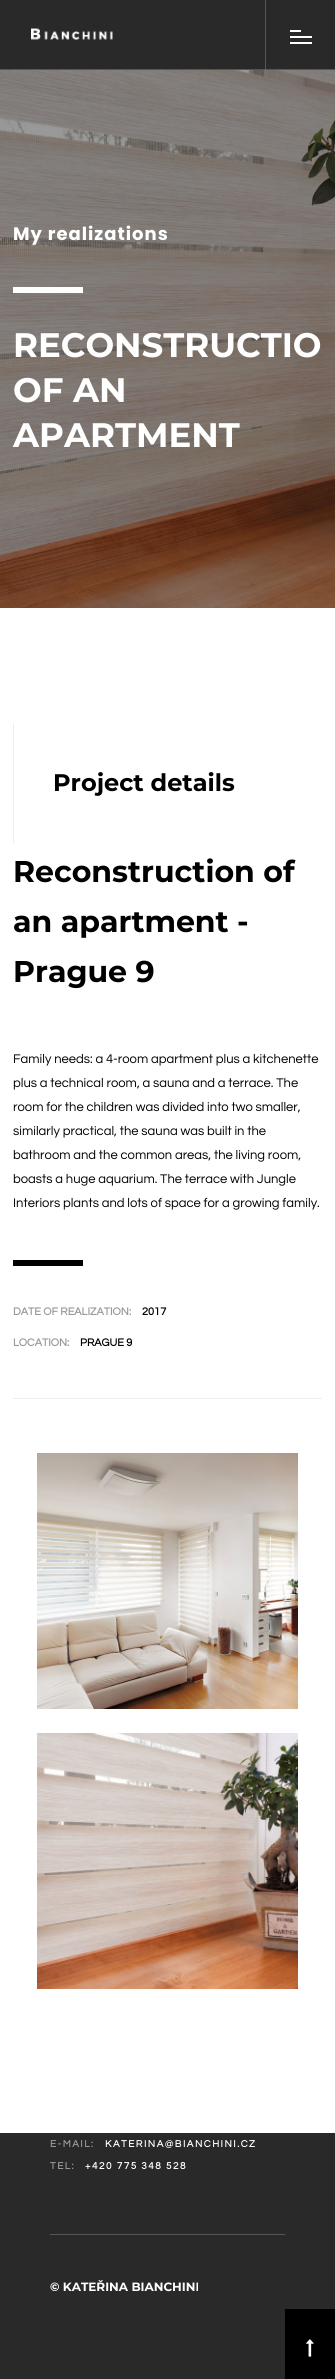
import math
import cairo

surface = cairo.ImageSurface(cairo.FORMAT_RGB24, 335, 2379)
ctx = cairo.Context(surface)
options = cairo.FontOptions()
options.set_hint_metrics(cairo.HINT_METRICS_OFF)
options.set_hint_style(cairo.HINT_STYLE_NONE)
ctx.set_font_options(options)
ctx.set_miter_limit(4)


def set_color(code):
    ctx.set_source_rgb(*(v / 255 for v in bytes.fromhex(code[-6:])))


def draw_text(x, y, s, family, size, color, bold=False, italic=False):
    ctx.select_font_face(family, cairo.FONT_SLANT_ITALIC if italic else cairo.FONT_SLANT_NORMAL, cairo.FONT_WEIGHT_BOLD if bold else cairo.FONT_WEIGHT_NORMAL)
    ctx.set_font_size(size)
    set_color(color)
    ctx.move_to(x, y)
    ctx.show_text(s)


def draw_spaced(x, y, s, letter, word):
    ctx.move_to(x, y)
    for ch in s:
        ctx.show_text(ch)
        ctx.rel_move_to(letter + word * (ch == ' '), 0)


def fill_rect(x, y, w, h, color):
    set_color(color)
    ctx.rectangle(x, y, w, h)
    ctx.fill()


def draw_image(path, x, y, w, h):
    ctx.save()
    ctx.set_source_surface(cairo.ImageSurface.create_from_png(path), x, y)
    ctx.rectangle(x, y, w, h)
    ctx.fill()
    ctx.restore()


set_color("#292929")
ctx.paint()
fill_rect(0, 69, 335, 1, "#565656")
draw_image("assets/img1.png", 31, 28, 82, 12)
ctx.set_source_rgba(1, 1, 1, 0.21)
ctx.rectangle(265, 0, 1, 70)
ctx.fill()
fill_rect(290, 30, 11, 2, "#ffffff")
fill_rect(290, 36, 22, 2, "#ffffff")
fill_rect(290, 42, 22, 2, "#ffffff")
fill_rect(0, 608, 335, 1525, "#ffffff")
draw_image("assets/img2.png", 0, 70, 335, 538)
ctx.select_font_face("Poppins", cairo.FONT_SLANT_NORMAL, cairo.FONT_WEIGHT_BOLD)
ctx.set_font_size(18)
draw_spaced(13, 240, "My realizations", 1, 0)
fill_rect(13, 287, 70, 6, "#ffffff")
draw_text(13, 357, "RECONSTRUCTIO", "Montserrat", 34, "#ffffff", bold=True)
draw_text(13, 402, "OF AN", "Montserrat", 34, "#ffffff", bold=True)
draw_text(13, 447, "APARTMENT", "Montserrat", 34, "#ffffff", bold=True)
fill_rect(13, 723, 1, 120, "#eeeeee")
draw_text(53, 791, "Project details", "Montserrat", 24, "#000000", bold=True)
draw_text(13, 882, "Reconstruction of", "Montserrat", 30, "#000000", bold=True)
draw_text(13, 932, "an apartment -", "Montserrat", 30, "#000000", bold=True)
draw_text(13, 982, "Prague 9", "Montserrat", 30, "#000000", bold=True)
draw_text(13, 1063, "Family needs: a 4-room apartment plus a kitchenette", "Questrial", 13, "#000000")
draw_text(13, 1087, "plus a technical room, a sauna and a terrace. The", "Questrial", 13, "#000000")
draw_text(13, 1111, "room for the children was divided into two smaller,", "Questrial", 13, "#000000")
draw_text(13, 1135, "similarly practical, the sauna was built in the", "Questrial", 13, "#000000")
draw_text(13, 1159, "bathroom and the common areas, the living room,", "Questrial", 13, "#000000")
draw_text(13, 1183, "boasts a huge aquarium. The terrace with Jungle", "Questrial", 13, "#000000")
draw_text(13, 1207, "Interiors plants and lots of space for a growing family.", "Questrial", 13, "#000000")
fill_rect(13, 1260, 70, 6, "#000000")
draw_text(13, 1315, "DATE OF REALIZATION:", "Questrial", 11, "#999999", bold=True)
draw_text(142, 1315, "2017", "Questrial", 11, "#000000", bold=True)
draw_text(13, 1346, "LOCATION:", "Questrial", 11, "#999999", bold=True)
draw_text(80, 1346, "PRAGUE 9", "Questrial", 11, "#000000", bold=True)
fill_rect(13, 1398, 309, 1, "#eeeeee")
draw_image("assets/img3.png", 37, 1453, 261, 256)
draw_image("assets/img4.png", 37, 1733, 261, 256)
ctx.set_font_size(10)
set_color("#999999")
draw_spaced(50, 2147, "E-MAIL:", 1.5, 0)
set_color("#ffffff")
draw_spaced(105, 2147, "KATERINA@BIANCHINI.CZ", 1.5, 0)
set_color("#999999")
draw_spaced(50, 2169, "TEL:", 1.5, 0)
set_color("#ffffff")
draw_spaced(85, 2169, "+420 775 348 528", 1.5, 0)
fill_rect(50, 2234, 235, 1, "#565656")
draw_text(50, 2291, "© KATEŘINA BIANCHINI", "Montserrat", 12, "#ffffff", bold=True)
fill_rect(285, 2309, 50, 70, "#000000")
draw_image("assets/img5.png", 306, 2339, 8, 18)
surface.write_to_png("output.png")
